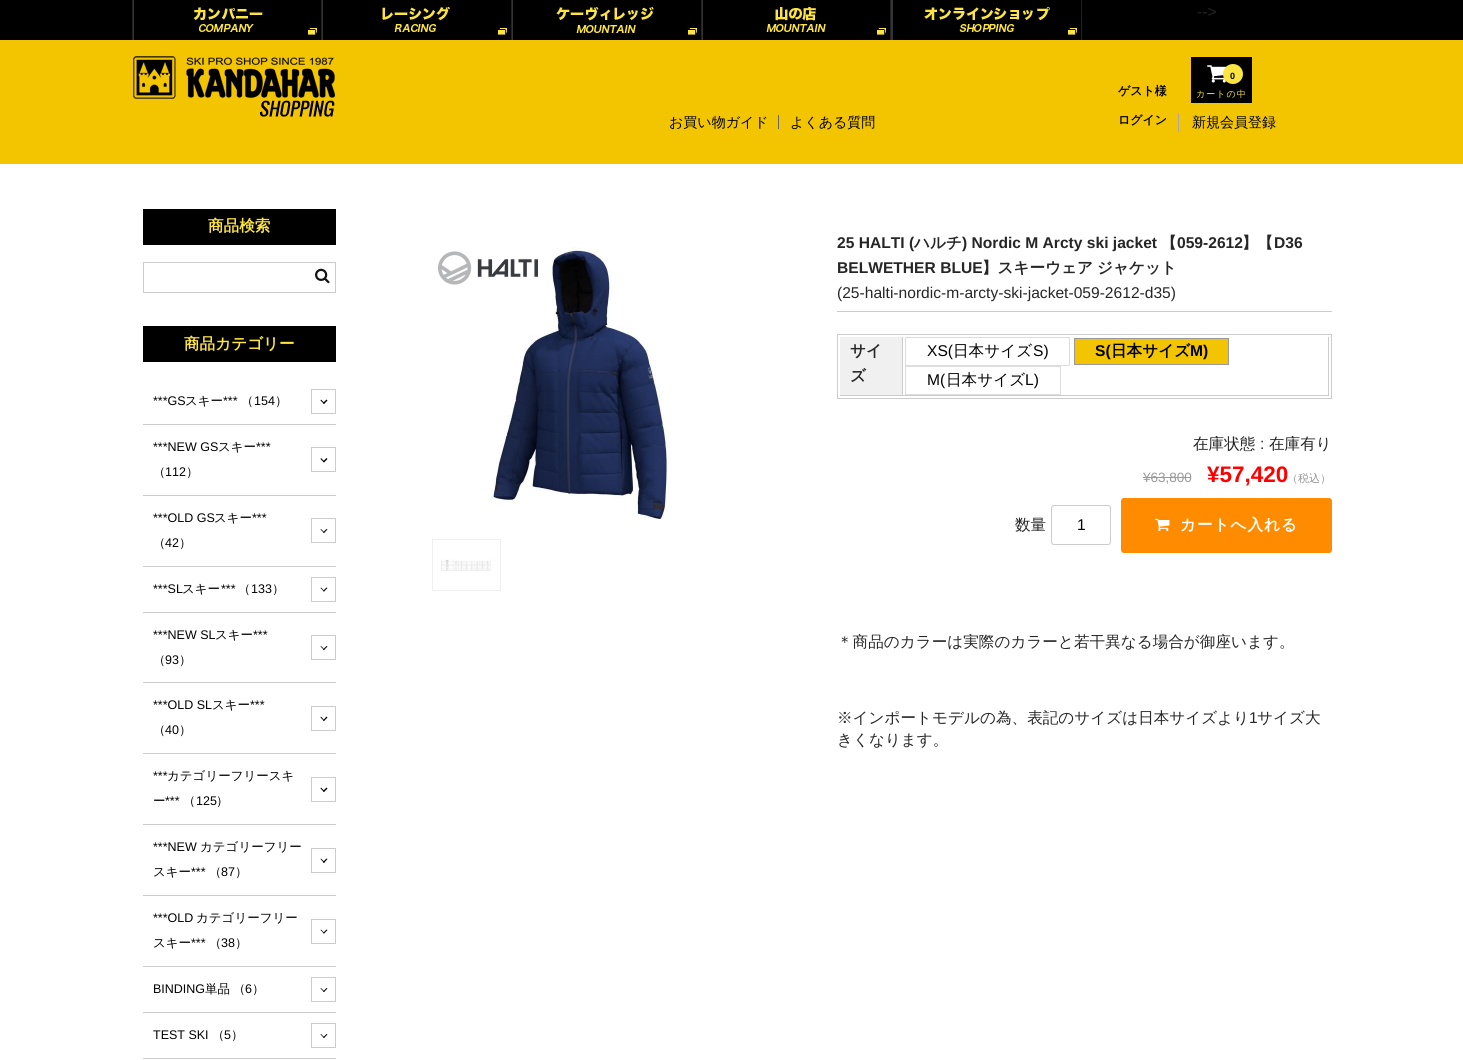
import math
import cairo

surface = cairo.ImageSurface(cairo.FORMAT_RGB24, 1463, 1060)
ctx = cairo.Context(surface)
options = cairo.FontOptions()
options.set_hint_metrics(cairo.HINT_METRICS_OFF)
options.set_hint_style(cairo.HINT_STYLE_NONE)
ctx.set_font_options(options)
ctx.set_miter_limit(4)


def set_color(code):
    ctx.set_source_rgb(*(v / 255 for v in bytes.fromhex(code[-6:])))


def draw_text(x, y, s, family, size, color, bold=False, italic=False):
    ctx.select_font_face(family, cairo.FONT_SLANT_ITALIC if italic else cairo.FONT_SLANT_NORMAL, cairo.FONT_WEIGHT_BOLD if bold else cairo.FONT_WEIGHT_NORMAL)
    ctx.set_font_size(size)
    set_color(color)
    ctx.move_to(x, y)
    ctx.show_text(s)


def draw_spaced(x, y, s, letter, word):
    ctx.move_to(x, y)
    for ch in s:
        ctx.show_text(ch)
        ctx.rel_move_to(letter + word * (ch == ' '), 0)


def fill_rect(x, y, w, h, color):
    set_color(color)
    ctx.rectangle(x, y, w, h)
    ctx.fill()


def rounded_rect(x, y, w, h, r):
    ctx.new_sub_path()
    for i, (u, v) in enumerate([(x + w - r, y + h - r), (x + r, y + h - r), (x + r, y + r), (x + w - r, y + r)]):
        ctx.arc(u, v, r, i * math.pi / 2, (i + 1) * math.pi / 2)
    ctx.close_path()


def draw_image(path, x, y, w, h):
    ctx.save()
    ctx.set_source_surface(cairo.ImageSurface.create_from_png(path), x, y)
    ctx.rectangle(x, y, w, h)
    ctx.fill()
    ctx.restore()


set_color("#ffffff")
ctx.paint()
fill_rect(0, 40, 1463, 124, "#f3c500")
fill_rect(0, 0, 1463, 40, "#000000")
fill_rect(132, 0, 1, 40, "#222222")
fill_rect(321, 0, 1, 40, "#222222")
fill_rect(133, 0, 1, 40, "#333333")
draw_image("assets/img1.png", 193, 7, 70, 25)
draw_image("assets/img2.png", 308, 28, 9, 7)
fill_rect(511, 0, 1, 40, "#222222")
fill_rect(322, 0, 1, 40, "#333333")
draw_image("assets/img3.png", 382, 6, 68, 26)
draw_image("assets/img2.png", 498, 28, 9, 7)
fill_rect(701, 0, 1, 40, "#222222")
fill_rect(512, 0, 1, 40, "#333333")
draw_image("assets/img4.png", 556, 7, 98, 26)
draw_image("assets/img2.png", 688, 28, 9, 7)
fill_rect(891, 0, 2, 40, "#333333")
fill_rect(890, 0, 1, 40, "#222222")
fill_rect(702, 0, 1, 40, "#333333")
draw_image("assets/img5.png", 766, 7, 60, 25)
draw_image("assets/img2.png", 877, 28, 9, 7)
fill_rect(1081, 0, 1, 40, "#222222")
draw_image("assets/img6.png", 924, 7, 126, 25)
draw_image("assets/img2.png", 1068, 28, 9, 7)
draw_text(1197, 17, "-->", "Liberation Sans", 15.6, "#262626")
fill_rect(778, 115, 1, 14, "#666666")
draw_text(669, 127, "お買い物ガイド", "WenQuanYi Zen Hei Medium", 14, "#000000")
draw_text(790, 127, "よくある質問", "WenQuanYi Zen Hei Medium", 14, "#000000")
draw_image("assets/img7.png", 133, 56, 202, 61)
draw_text(1118, 95, "ゲスト様", "WenQuanYi Zen Hei", 12, "#000000", bold=True)
fill_rect(1191, 57, 61, 46, "#000000")
draw_image("assets/img8.png", 1207, 65, 20, 18)
set_color("#fce441")
ctx.arc(1233, 74, 10, 0, 2 * math.pi)
ctx.fill()
ctx.select_font_face("Liberation Sans", cairo.FONT_SLANT_NORMAL, cairo.FONT_WEIGHT_BOLD)
ctx.set_font_size(9)
set_color("#000000")
draw_spaced(1230, 79, "0", 1, 0)
ctx.select_font_face("WenQuanYi Zen Hei Medium")
set_color("#fce441")
draw_spaced(1196, 97, "カートの中", 1, 0)
draw_text(1118, 124, "ログイン", "WenQuanYi Zen Hei", 12, "#000000", bold=True)
fill_rect(1178, 113, 1, 19, "#aaaaaa")
draw_text(1192, 127, "新規会員登録", "WenQuanYi Zen Hei Medium", 14, "#000000")
fill_rect(143, 209, 193, 36, "#000000")
draw_text(208, 231, "商品検索", "WenQuanYi Zen Hei", 15.6, "#fce441", bold=True)
ctx.rectangle(143.5, 262.5, 192, 30)
set_color("#cccccc")
ctx.set_line_width(1)
ctx.stroke()
draw_image("assets/img9.png", 315, 268, 15, 16)
fill_rect(143, 326, 193, 36, "#000000")
draw_text(184, 349, "商品カテゴリー", "WenQuanYi Zen Hei", 15.6, "#fce441", bold=True)
fill_rect(143, 424, 193, 1, "#cccccc")
draw_text(153, 405, "***GS", "Liberation Sans", 12.5, "#000000")
draw_text(185, 405, "スキー", "WenQuanYi Zen Hei Medium", 12.5, "#000000")
draw_text(223, 405, "***", "Liberation Sans", 12.5, "#000000")
draw_text(241, 405, "（", "WenQuanYi Zen Hei Medium", 12.5, "#000000")
draw_text(254, 405, "154", "Liberation Sans", 12.5, "#000000")
draw_text(275, 405, "）", "WenQuanYi Zen Hei Medium", 12.5, "#000000")
ctx.rectangle(311.5, 389.5, 24, 24)
set_color("#cccccc")
ctx.stroke()
set_color("#000000")
ctx.new_path()
ctx.move_to(326.5, 399.5)
ctx.line_to(327.5, 400.5)
ctx.line_to(324, 404)
ctx.line_to(323, 403)
ctx.close_path()
ctx.fill()
ctx.new_path()
ctx.move_to(321, 399.5)
ctx.line_to(324.5, 403)
ctx.line_to(324, 404)
ctx.line_to(320.5, 400.5)
ctx.close_path()
ctx.fill()
fill_rect(143, 495, 193, 1, "#cccccc")
draw_text(153, 451, "***NEW GS", "Liberation Sans", 12.5, "#000000")
draw_text(218, 451, "スキー", "WenQuanYi Zen Hei Medium", 12.5, "#000000")
draw_text(256, 451, "***", "Liberation Sans", 12.5, "#000000")
draw_text(153, 476, "（", "WenQuanYi Zen Hei Medium", 12.5, "#000000")
draw_text(165, 476, "112", "Liberation Sans", 12.5, "#000000")
draw_text(186, 476, "）", "WenQuanYi Zen Hei Medium", 12.5, "#000000")
ctx.rectangle(311.5, 447.5, 24, 24)
set_color("#cccccc")
ctx.stroke()
set_color("#000000")
ctx.new_path()
ctx.move_to(326.5, 458)
ctx.line_to(327.5, 459)
ctx.line_to(324, 462.5)
ctx.line_to(323, 461.5)
ctx.close_path()
ctx.fill()
ctx.new_path()
ctx.move_to(321, 458)
ctx.line_to(324.5, 461.5)
ctx.line_to(324, 462.5)
ctx.line_to(320.5, 459)
ctx.close_path()
ctx.fill()
fill_rect(143, 566, 193, 1, "#cccccc")
draw_text(153, 522, "***OLD GS", "Liberation Sans", 12.5, "#000000")
draw_text(214, 522, "スキー", "WenQuanYi Zen Hei Medium", 12.5, "#000000")
draw_text(252, 522, "***", "Liberation Sans", 12.5, "#000000")
draw_text(153, 547, "（", "WenQuanYi Zen Hei Medium", 12.5, "#000000")
draw_text(165, 547, "42", "Liberation Sans", 12.5, "#000000")
draw_text(179, 547, "）", "WenQuanYi Zen Hei Medium", 12.5, "#000000")
ctx.rectangle(311.5, 518.5, 24, 24)
set_color("#cccccc")
ctx.stroke()
set_color("#000000")
ctx.new_path()
ctx.move_to(326.5, 529)
ctx.line_to(327.5, 529.5)
ctx.line_to(324, 533)
ctx.line_to(323, 532.5)
ctx.close_path()
ctx.fill()
ctx.rectangle(311.5, 577.5, 24, 24)
set_color("#cccccc")
ctx.stroke()
set_color("#000000")
ctx.new_path()
ctx.move_to(321, 529)
ctx.line_to(324.5, 532.5)
ctx.line_to(324, 533)
ctx.line_to(320.5, 529.5)
ctx.close_path()
ctx.move_to(326.5, 587.5)
ctx.line_to(327.5, 588)
ctx.line_to(324, 591.5)
ctx.line_to(323, 591)
ctx.close_path()
ctx.fill()
fill_rect(143, 612, 193, 1, "#cccccc")
draw_text(153, 593, "***SL", "Liberation Sans", 12.5, "#000000")
draw_text(182, 593, "スキー", "WenQuanYi Zen Hei Medium", 12.5, "#000000")
draw_text(221, 593, "***", "Liberation Sans", 12.5, "#000000")
draw_text(238, 593, "（", "WenQuanYi Zen Hei Medium", 12.5, "#000000")
draw_text(251, 593, "133", "Liberation Sans", 12.5, "#000000")
draw_text(272, 593, "）", "WenQuanYi Zen Hei Medium", 12.5, "#000000")
ctx.rectangle(311.5, 635.5, 24, 24)
set_color("#cccccc")
ctx.stroke()
set_color("#000000")
ctx.new_path()
ctx.move_to(321, 587.5)
ctx.line_to(324.5, 591)
ctx.line_to(324, 591.5)
ctx.line_to(320.5, 588)
ctx.close_path()
ctx.move_to(326.5, 646)
ctx.line_to(327.5, 646.5)
ctx.line_to(324, 650)
ctx.line_to(323, 649.5)
ctx.close_path()
ctx.fill()
fill_rect(143, 682, 193, 1, "#cccccc")
draw_text(153, 639, "***NEW SL", "Liberation Sans", 12.5, "#000000")
draw_text(215, 639, "スキー", "WenQuanYi Zen Hei Medium", 12.5, "#000000")
draw_text(253, 639, "***", "Liberation Sans", 12.5, "#000000")
draw_text(153, 664, "（", "WenQuanYi Zen Hei Medium", 12.5, "#000000")
draw_text(165, 664, "93", "Liberation Sans", 12.5, "#000000")
draw_text(179, 664, "）", "WenQuanYi Zen Hei Medium", 12.5, "#000000")
ctx.new_path()
ctx.move_to(321, 646)
ctx.line_to(324.5, 649.5)
ctx.line_to(324, 650)
ctx.line_to(320.5, 646.5)
ctx.close_path()
ctx.fill()
fill_rect(143, 753, 193, 1, "#cccccc")
draw_text(153, 709, "***OLD SL", "Liberation Sans", 12.5, "#000000")
draw_text(212, 709, "スキー", "WenQuanYi Zen Hei Medium", 12.5, "#000000")
draw_text(250, 709, "***", "Liberation Sans", 12.5, "#000000")
draw_text(153, 734, "（", "WenQuanYi Zen Hei Medium", 12.5, "#000000")
draw_text(165, 734, "40", "Liberation Sans", 12.5, "#000000")
draw_text(179, 734, "）", "WenQuanYi Zen Hei Medium", 12.5, "#000000")
ctx.rectangle(311.5, 706.5, 24, 24)
set_color("#cccccc")
ctx.stroke()
set_color("#000000")
ctx.new_path()
ctx.move_to(326.5, 716.5)
ctx.line_to(327.5, 717.5)
ctx.line_to(324, 721)
ctx.line_to(323, 720.5)
ctx.close_path()
ctx.fill()
ctx.new_path()
ctx.move_to(321, 716.5)
ctx.line_to(324.5, 720.5)
ctx.line_to(324, 721)
ctx.line_to(320.5, 717.5)
ctx.close_path()
ctx.fill()
fill_rect(143, 824, 193, 1, "#cccccc")
draw_text(153, 780, "***", "Liberation Sans", 12.5, "#000000")
draw_text(167, 780, "カテゴリーフリースキ", "WenQuanYi Zen Hei Medium", 12.5, "#000000")
draw_text(153, 805, "ー", "WenQuanYi Zen Hei Medium", 12.5, "#000000")
draw_text(165, 805, "***", "Liberation Sans", 12.5, "#000000")
draw_text(183, 805, "（", "WenQuanYi Zen Hei Medium", 12.5, "#000000")
draw_text(196, 805, "125", "Liberation Sans", 12.5, "#000000")
draw_text(216, 805, "）", "WenQuanYi Zen Hei Medium", 12.5, "#000000")
ctx.rectangle(311.5, 777.5, 24, 24)
set_color("#cccccc")
ctx.stroke()
set_color("#000000")
ctx.new_path()
ctx.move_to(326.5, 787.5)
ctx.line_to(327.5, 788.5)
ctx.line_to(324, 792)
ctx.line_to(323, 791)
ctx.close_path()
ctx.fill()
ctx.new_path()
ctx.move_to(321, 787.5)
ctx.line_to(324.5, 791)
ctx.line_to(324, 792)
ctx.line_to(320.5, 788.5)
ctx.close_path()
ctx.fill()
fill_rect(143, 895, 193, 1, "#cccccc")
draw_text(153, 851, "***NEW", "Liberation Sans", 12.5, "#000000")
draw_text(200, 851, "カテゴリーフリー", "WenQuanYi Zen Hei Medium", 12.5, "#000000")
draw_text(153, 876, "スキー", "WenQuanYi Zen Hei Medium", 12.5, "#000000")
draw_text(191, 876, "***", "Liberation Sans", 12.5, "#000000")
draw_text(209, 876, "（", "WenQuanYi Zen Hei Medium", 12.5, "#000000")
draw_text(221, 876, "87", "Liberation Sans", 12.5, "#000000")
draw_text(235, 876, "）", "WenQuanYi Zen Hei Medium", 12.5, "#000000")
ctx.rectangle(311.5, 848.5, 24, 24)
set_color("#cccccc")
ctx.stroke()
set_color("#000000")
ctx.new_path()
ctx.move_to(326.5, 858.5)
ctx.line_to(327.5, 859)
ctx.line_to(324, 863)
ctx.line_to(323, 862)
ctx.close_path()
ctx.fill()
ctx.new_path()
ctx.move_to(321, 858.5)
ctx.line_to(324.5, 862)
ctx.line_to(324, 863)
ctx.line_to(320.5, 859)
ctx.close_path()
ctx.fill()
fill_rect(143, 966, 193, 1, "#cccccc")
draw_text(153, 922, "***OLD", "Liberation Sans", 12.5, "#000000")
draw_text(196, 922, "カテゴリーフリー", "WenQuanYi Zen Hei Medium", 12.5, "#000000")
draw_text(153, 947, "スキー", "WenQuanYi Zen Hei Medium", 12.5, "#000000")
draw_text(191, 947, "***", "Liberation Sans", 12.5, "#000000")
draw_text(209, 947, "（", "WenQuanYi Zen Hei Medium", 12.5, "#000000")
draw_text(221, 947, "38", "Liberation Sans", 12.5, "#000000")
draw_text(235, 947, "）", "WenQuanYi Zen Hei Medium", 12.5, "#000000")
ctx.rectangle(311.5, 919.5, 24, 24)
set_color("#cccccc")
ctx.stroke()
set_color("#000000")
ctx.new_path()
ctx.move_to(326.5, 929.5)
ctx.line_to(327.5, 930)
ctx.line_to(324, 933.5)
ctx.line_to(323, 933)
ctx.close_path()
ctx.fill()
ctx.rectangle(311.5, 977.5, 24, 24)
set_color("#cccccc")
ctx.stroke()
set_color("#000000")
ctx.new_path()
ctx.move_to(321, 929.5)
ctx.line_to(324.5, 933)
ctx.line_to(324, 933.5)
ctx.line_to(320.5, 930)
ctx.close_path()
ctx.move_to(326.5, 988)
ctx.line_to(327.5, 988.5)
ctx.line_to(324, 992)
ctx.line_to(323, 991.5)
ctx.close_path()
ctx.fill()
fill_rect(143, 1012, 193, 1, "#cccccc")
draw_text(153, 993, "BINDING", "Liberation Sans", 12.5, "#000000")
draw_text(205, 993, "単品", "WenQuanYi Zen Hei Medium", 12.5, "#000000")
draw_text(233, 993, "（", "WenQuanYi Zen Hei Medium", 12.5, "#000000")
draw_text(245, 993, "6", "Liberation Sans", 12.5, "#000000")
draw_text(252, 993, "）", "WenQuanYi Zen Hei Medium", 12.5, "#000000")
ctx.rectangle(311.5, 1023.5, 24, 24)
set_color("#cccccc")
ctx.stroke()
set_color("#000000")
ctx.new_path()
ctx.move_to(321, 988)
ctx.line_to(324.5, 991.5)
ctx.line_to(324, 992)
ctx.line_to(320.5, 988.5)
ctx.close_path()
ctx.move_to(326.5, 1034)
ctx.line_to(327.5, 1034.5)
ctx.line_to(324, 1038)
ctx.line_to(323, 1037.5)
ctx.close_path()
ctx.fill()
fill_rect(143, 1058, 193, 1, "#cccccc")
draw_text(153, 1039, "TEST SKI", "Liberation Sans", 12.5, "#000000")
draw_text(212, 1039, "（", "WenQuanYi Zen Hei Medium", 12.5, "#000000")
draw_text(224, 1039, "5", "Liberation Sans", 12.5, "#000000")
draw_text(231, 1039, "）", "WenQuanYi Zen Hei Medium", 12.5, "#000000")
ctx.new_path()
ctx.move_to(321, 1034)
ctx.line_to(324.5, 1037.5)
ctx.line_to(324, 1038)
ctx.line_to(320.5, 1034.5)
ctx.close_path()
ctx.fill()
draw_image("assets/img10.png", 438, 247, 234, 272)
ctx.rectangle(432.5, 539.5, 68, 51)
set_color("#efefef")
ctx.stroke()
draw_image("assets/img11.png", 441, 559, 50, 12)
draw_text(837, 248, "25 HALTI (", "Liberation Sans", 15.6, "#262626", bold=True)
draw_text(914, 248, "ハルチ", "WenQuanYi Zen Hei", 15.6, "#262626", bold=True)
draw_text(962, 248, ") Nordic M Arcty ski jacket", "Liberation Sans", 15.6, "#262626", bold=True)
draw_text(1161, 248, "【", "WenQuanYi Zen Hei", 15.6, "#262626", bold=True)
draw_text(1177, 248, "059-2612", "Liberation Sans", 15.6, "#262626", bold=True)
draw_text(1242, 248, "】【", "WenQuanYi Zen Hei", 15.6, "#262626", bold=True)
draw_text(1274, 248, "D36", "Liberation Sans", 15.6, "#262626", bold=True)
draw_text(837, 273, "BELWETHER BLUE", "Liberation Sans", 15.6, "#262626", bold=True)
draw_text(982, 273, "】スキーウェア", "WenQuanYi Zen Hei", 15.6, "#262626", bold=True)
draw_text(1097, 273, "ジャケット", "WenQuanYi Zen Hei", 15.6, "#262626", bold=True)
fill_rect(837, 311, 495, 1, "#cccccc")
draw_text(837, 298, "(25-halti-nordic-m-arcty-ski-jacket-059-2612-d35)", "Liberation Sans", 15.6, "#262626")
ctx.rectangle(837.5, 334.5, 494, 64)
set_color("#cccccc")
ctx.stroke()
fill_rect(840, 337, 62, 58, "#f0f0f0")
fill_rect(902, 337, 1, 59, "#cccccc")
fill_rect(840, 395, 63, 1, "#cccccc")
draw_text(850, 356, "サイ", "WenQuanYi Zen Hei", 15.6, "#262626", bold=True)
draw_text(850, 381, "ズ", "WenQuanYi Zen Hei", 15.6, "#262626", bold=True)
fill_rect(1328, 337, 1, 59, "#cccccc")
fill_rect(903, 395, 426, 1, "#cccccc")
ctx.rectangle(905.5, 337.5, 164, 28)
set_color("#dddddd")
ctx.stroke()
draw_text(927, 356, "XS(", "Liberation Sans", 15.6, "#000000")
draw_text(953, 356, "日本サイズ", "WenQuanYi Zen Hei Medium", 15.6, "#000000")
draw_text(1033, 356, "S)", "Liberation Sans", 15.6, "#000000")
set_color("#f3c500")
ctx.rectangle(1074.5, 338.5, 154, 26)
ctx.fill_preserve()
set_color("#999999")
ctx.stroke()
draw_text(1095, 356, "S(", "Liberation Sans", 15.6, "#000000", bold=True)
draw_text(1111, 356, "日本サイズ", "WenQuanYi Zen Hei", 15.6, "#000000", bold=True)
draw_text(1190, 356, "M)", "Liberation Sans", 15.6, "#000000", bold=True)
ctx.rectangle(905.5, 366.5, 155, 28)
set_color("#dddddd")
ctx.stroke()
draw_text(927, 385, "M(", "Liberation Sans", 15.6, "#000000")
draw_text(946, 385, "日本サイズ", "WenQuanYi Zen Hei Medium", 15.6, "#000000")
draw_text(1025, 385, "L)", "Liberation Sans", 15.6, "#000000")
draw_text(1193, 449, "在庫状態", "WenQuanYi Zen Hei Medium", 15.6, "#262626")
draw_text(1260, 449, ":", "Liberation Sans", 15.6, "#262626")
draw_text(1269, 449, "在庫有り", "WenQuanYi Zen Hei Medium", 15.6, "#262626")
draw_text(1143, 482, "¥63,800", "Liberation Sans", 13.5, "#999999")
fill_rect(1143, 477, 48, 1, "#999999")
draw_text(1207, 482, "¥57,420", "Liberation Sans", 22.5, "#ff0000", bold=True)
draw_text(1287, 482, "（税込）", "WenQuanYi Zen Hei Medium", 11, "#999999")
draw_text(1015, 530, "数量", "WenQuanYi Zen Hei Medium", 15.6, "#262626")
rounded_rect(1051.5, 505.5, 59, 39, 2.5)
set_color("#cccccc")
ctx.stroke()
draw_text(1077, 530, "1", "Liberation Sans", 15.6, "#000000")
set_color("#ff8c00")
rounded_rect(1121, 498, 211, 55, 3)
ctx.fill()
draw_image("assets/img12.png", 1155, 518, 15, 14)
ctx.select_font_face("WenQuanYi Zen Hei", cairo.FONT_SLANT_NORMAL, cairo.FONT_WEIGHT_BOLD)
set_color("#ffffff")
draw_spaced(1180, 530, "カートへ入れる", 1, 0)
draw_text(837, 647, "＊商品のカラーは実際のカラーと若干異なる場合が御座います。", "WenQuanYi Zen Hei Medium", 15.6, "#262626")
draw_text(837, 723, "※インポートモデルの為、表記のサイズは日本サイズより", "WenQuanYi Zen Hei Medium", 15.6, "#262626")
draw_text(1249, 723, "1", "Liberation Sans", 15.6, "#262626")
draw_text(1257, 723, "サイズ大", "WenQuanYi Zen Hei Medium", 15.6, "#262626")
draw_text(837, 745, "きくなります。", "WenQuanYi Zen Hei Medium", 15.6, "#262626")
surface.write_to_png("output.png")
